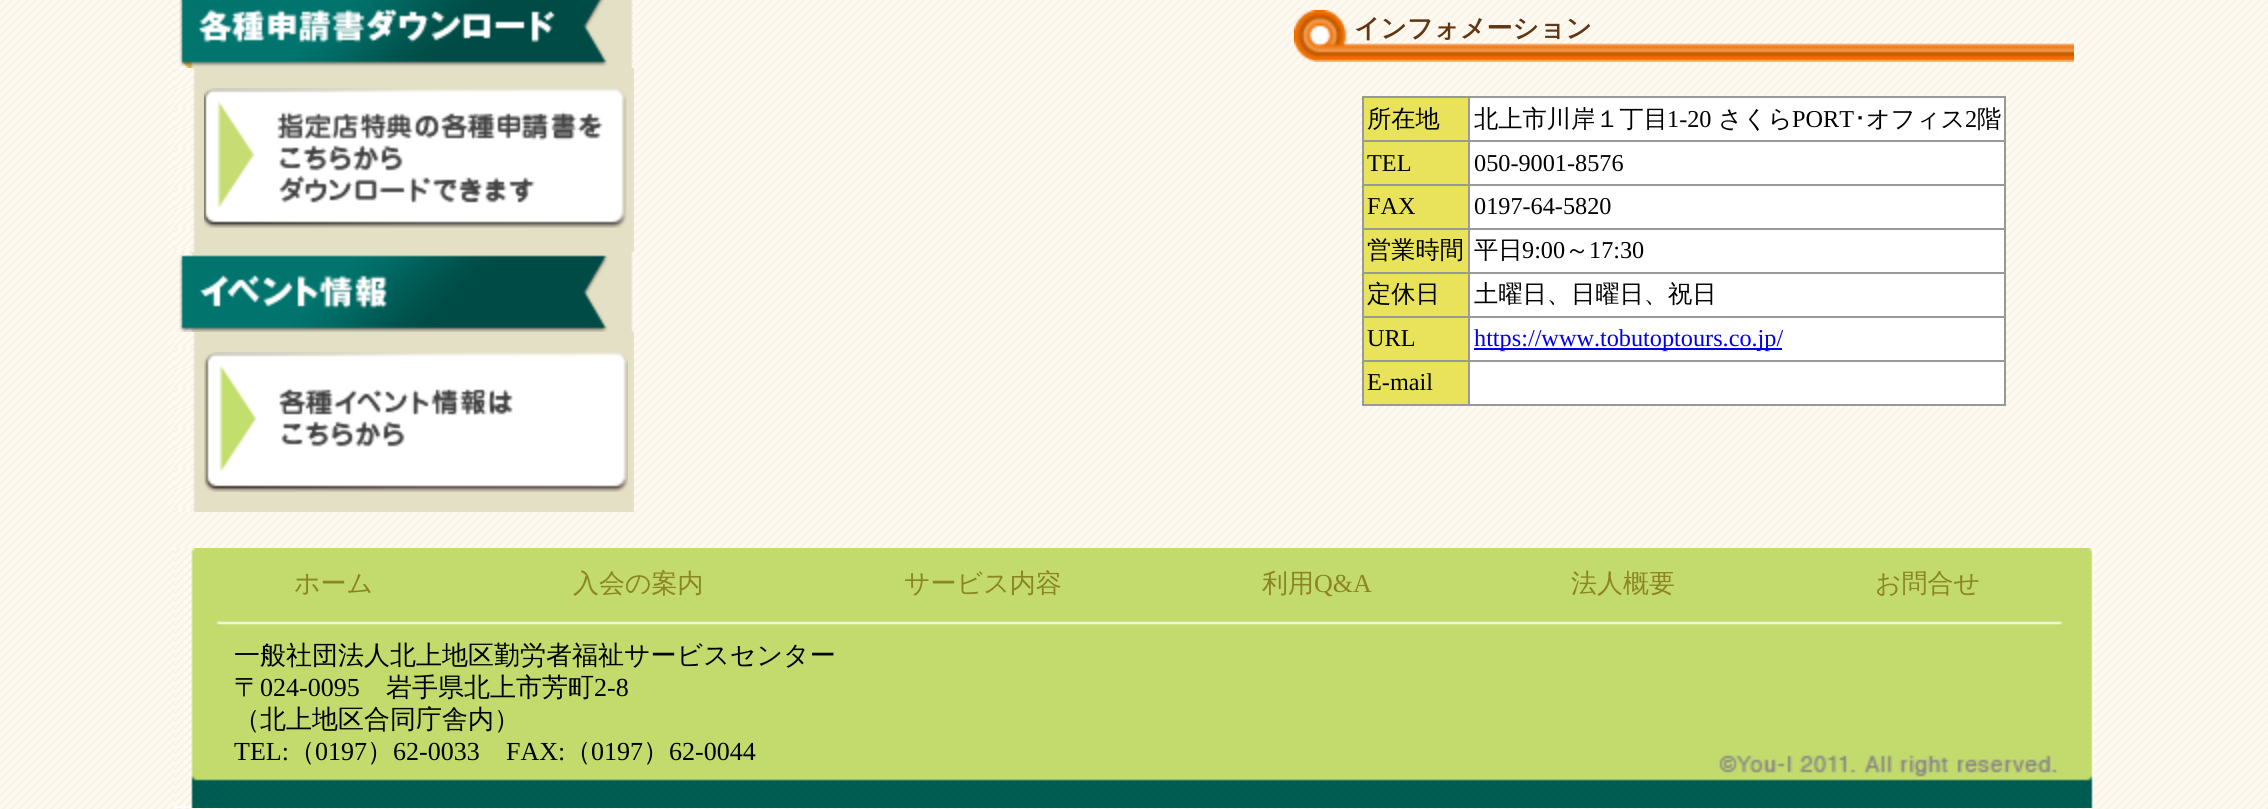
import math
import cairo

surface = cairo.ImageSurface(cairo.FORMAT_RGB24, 2268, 809)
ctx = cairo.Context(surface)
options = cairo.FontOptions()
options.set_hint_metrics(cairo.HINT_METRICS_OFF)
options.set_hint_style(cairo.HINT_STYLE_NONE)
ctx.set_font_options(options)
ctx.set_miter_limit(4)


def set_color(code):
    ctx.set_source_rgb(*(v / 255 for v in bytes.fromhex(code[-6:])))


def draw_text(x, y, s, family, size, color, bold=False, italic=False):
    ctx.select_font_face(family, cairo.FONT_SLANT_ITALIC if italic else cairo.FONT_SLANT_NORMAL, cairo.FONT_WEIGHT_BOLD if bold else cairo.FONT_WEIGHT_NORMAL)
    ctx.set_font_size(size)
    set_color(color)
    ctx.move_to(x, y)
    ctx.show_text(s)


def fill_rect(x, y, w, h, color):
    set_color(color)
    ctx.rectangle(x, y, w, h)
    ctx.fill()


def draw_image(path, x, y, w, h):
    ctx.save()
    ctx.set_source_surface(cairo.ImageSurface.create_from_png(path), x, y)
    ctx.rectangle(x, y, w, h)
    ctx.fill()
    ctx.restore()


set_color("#ffffff")
ctx.paint()
draw_image("assets/img1.png", 0, 0, 2268, 809)
draw_image("assets/img2.png", 174, 68, 460, 444)
draw_image("assets/img3.png", 174, 0, 460, 68)
draw_image("assets/img4.png", 204, 88, 423, 140)
draw_image("assets/img5.png", 174, 252, 460, 80)
draw_image("assets/img6.png", 204, 352, 424, 140)
draw_image("assets/img7.png", 1294, 10, 780, 52)
draw_text(1354, 37, "インフォメーション", "WenQuanYi Zen Hei", 25.9, "#623513", bold=True)
fill_rect(1364, 98, 104, 42, "#e8e35b")
fill_rect(1468, 96, 538, 2, "#999999")
fill_rect(1468, 140, 538, 2, "#999999")
fill_rect(1468, 184, 538, 2, "#999999")
fill_rect(1468, 228, 538, 2, "#999999")
fill_rect(1468, 272, 538, 2, "#999999")
fill_rect(1468, 316, 538, 2, "#999999")
fill_rect(1468, 360, 538, 2, "#999999")
fill_rect(2004, 360, 2, 46, "#999999")
fill_rect(1468, 404, 538, 2, "#999999")
fill_rect(1468, 360, 2, 46, "#999999")
fill_rect(1362, 360, 108, 2, "#999999")
fill_rect(1468, 316, 2, 46, "#999999")
fill_rect(1362, 316, 108, 2, "#999999")
fill_rect(1468, 272, 2, 46, "#999999")
fill_rect(1362, 272, 108, 2, "#999999")
fill_rect(1468, 228, 2, 46, "#999999")
fill_rect(1362, 228, 108, 2, "#999999")
fill_rect(1468, 184, 2, 46, "#999999")
fill_rect(1362, 184, 108, 2, "#999999")
fill_rect(1468, 140, 2, 46, "#999999")
fill_rect(1362, 140, 108, 2, "#999999")
fill_rect(1468, 96, 2, 46, "#999999")
fill_rect(1362, 96, 108, 2, "#999999")
fill_rect(1362, 404, 108, 2, "#999999")
fill_rect(1362, 360, 2, 46, "#999999")
fill_rect(1362, 316, 2, 46, "#999999")
fill_rect(1362, 272, 2, 46, "#999999")
fill_rect(1362, 228, 2, 46, "#999999")
fill_rect(1362, 184, 2, 46, "#999999")
fill_rect(1362, 140, 2, 46, "#999999")
fill_rect(1362, 96, 2, 46, "#999999")
draw_text(1367, 127, "所在地", "WenQuanYi Zen Hei Medium", 24.25, "#000000")
fill_rect(1470, 98, 534, 42, "#ffffff")
fill_rect(2004, 316, 2, 46, "#999999")
fill_rect(2004, 272, 2, 46, "#999999")
fill_rect(2004, 228, 2, 46, "#999999")
fill_rect(2004, 184, 2, 46, "#999999")
fill_rect(2004, 140, 2, 46, "#999999")
fill_rect(2004, 96, 2, 46, "#999999")
draw_text(1474, 127, "北上市川岸１丁目", "WenQuanYi Zen Hei Medium", 24.25, "#000000")
draw_text(1667, 127, "1-20", "Liberation Serif", 24.25, "#000000")
draw_text(1718, 127, "さくら", "WenQuanYi Zen Hei Medium", 24.25, "#000000")
draw_text(1792, 127, "PORT", "Liberation Serif", 24.25, "#000000")
draw_text(1854, 127, "･", "IPAPGothic", 24.25, "#000000")
draw_text(1866, 127, "オフィス", "WenQuanYi Zen Hei Medium", 24.25, "#000000")
draw_text(1965, 127, "2", "Liberation Serif", 24.25, "#000000")
draw_text(1977, 127, "階", "WenQuanYi Zen Hei Medium", 24.25, "#000000")
fill_rect(1364, 142, 104, 42, "#e8e35b")
draw_text(1367, 171, "TEL", "Liberation Serif", 24.25, "#000000")
fill_rect(1470, 142, 534, 42, "#ffffff")
draw_text(1474, 171, "050-9001-8576", "Liberation Serif", 24.25, "#000000")
fill_rect(1364, 186, 104, 42, "#e8e35b")
draw_text(1367, 214, "FAX", "Liberation Serif", 24.25, "#000000")
fill_rect(1470, 186, 534, 42, "#ffffff")
draw_text(1474, 214, "0197-64-5820", "Liberation Serif", 24.25, "#000000")
fill_rect(1364, 230, 104, 42, "#e8e35b")
draw_text(1367, 258, "営業時間", "WenQuanYi Zen Hei Medium", 24.25, "#000000")
fill_rect(1470, 230, 534, 42, "#ffffff")
draw_text(1474, 258, "平日", "WenQuanYi Zen Hei Medium", 24.25, "#000000")
draw_text(1522, 258, "9:00", "Liberation Serif", 24.25, "#000000")
draw_text(1565, 258, "～", "WenQuanYi Zen Hei Medium", 24.25, "#000000")
draw_text(1589, 258, "17:30", "Liberation Serif", 24.25, "#000000")
fill_rect(1364, 274, 104, 42, "#e8e35b")
draw_text(1367, 302, "定休日", "WenQuanYi Zen Hei Medium", 24.25, "#000000")
fill_rect(1470, 274, 534, 42, "#ffffff")
draw_text(1474, 302, "土曜日、日曜日、祝日", "WenQuanYi Zen Hei Medium", 24.25, "#000000")
fill_rect(1364, 318, 104, 42, "#e8e35b")
draw_text(1367, 346, "URL", "Liberation Serif", 24.25, "#000000")
fill_rect(1470, 318, 534, 42, "#ffffff")
fill_rect(1474, 348, 308, 2, "#0000ee")
draw_text(1474, 346, "https://www.tobutoptours.co.jp/", "Liberation Serif", 24.25, "#0000ee")
fill_rect(1364, 362, 104, 42, "#e8e35b")
draw_text(1367, 390, "E-mail", "Liberation Serif", 24.25, "#000000")
fill_rect(1470, 362, 534, 42, "#ffffff")
draw_image("assets/img8.png", 174, 548, 1920, 260)
draw_text(294, 592, "ホーム", "WenQuanYi Zen Hei Medium", 26, "#8b8525")
draw_text(573, 592, "入会の案内", "WenQuanYi Zen Hei Medium", 26, "#8b8525")
draw_text(904, 592, "サービス内容", "WenQuanYi Zen Hei Medium", 26, "#8b8525")
draw_text(1262, 592, "利用", "WenQuanYi Zen Hei Medium", 26, "#8b8525")
draw_text(1314, 592, "Q&A", "Liberation Serif", 26, "#8b8525")
draw_text(1571, 592, "法人概要", "WenQuanYi Zen Hei Medium", 26, "#8b8525")
draw_text(1875, 592, "お問合せ", "WenQuanYi Zen Hei Medium", 26, "#8b8525")
draw_text(234, 664, "一般社団法人北上地区勤労者福祉サービスセンター", "WenQuanYi Zen Hei Medium", 26, "#000000")
draw_text(234, 696, "〒", "WenQuanYi Zen Hei Medium", 26, "#000000")
draw_text(260, 696, "024-0095", "Liberation Serif", 26, "#000000")
draw_text(386, 696, "岩手県北上市芳町", "WenQuanYi Zen Hei Medium", 26, "#000000")
draw_text(594, 696, "2-8", "Liberation Serif", 26, "#000000")
draw_text(234, 728, "（北上地区合同庁舎内）", "WenQuanYi Zen Hei Medium", 26, "#000000")
draw_text(234, 760, "TEL:", "Liberation Serif", 26, "#000000")
draw_text(289, 760, "（", "WenQuanYi Zen Hei Medium", 26, "#000000")
draw_text(315, 760, "0197", "Liberation Serif", 26, "#000000")
draw_text(367, 760, "）", "WenQuanYi Zen Hei Medium", 26, "#000000")
draw_text(393, 760, "62-0033", "Liberation Serif", 26, "#000000")
draw_text(506, 760, "FAX:", "Liberation Serif", 26, "#000000")
draw_text(565, 760, "（", "WenQuanYi Zen Hei Medium", 26, "#000000")
draw_text(591, 760, "0197", "Liberation Serif", 26, "#000000")
draw_text(643, 760, "）", "WenQuanYi Zen Hei Medium", 26, "#000000")
draw_text(669, 760, "62-0044", "Liberation Serif", 26, "#000000")
surface.write_to_png("output.png")
